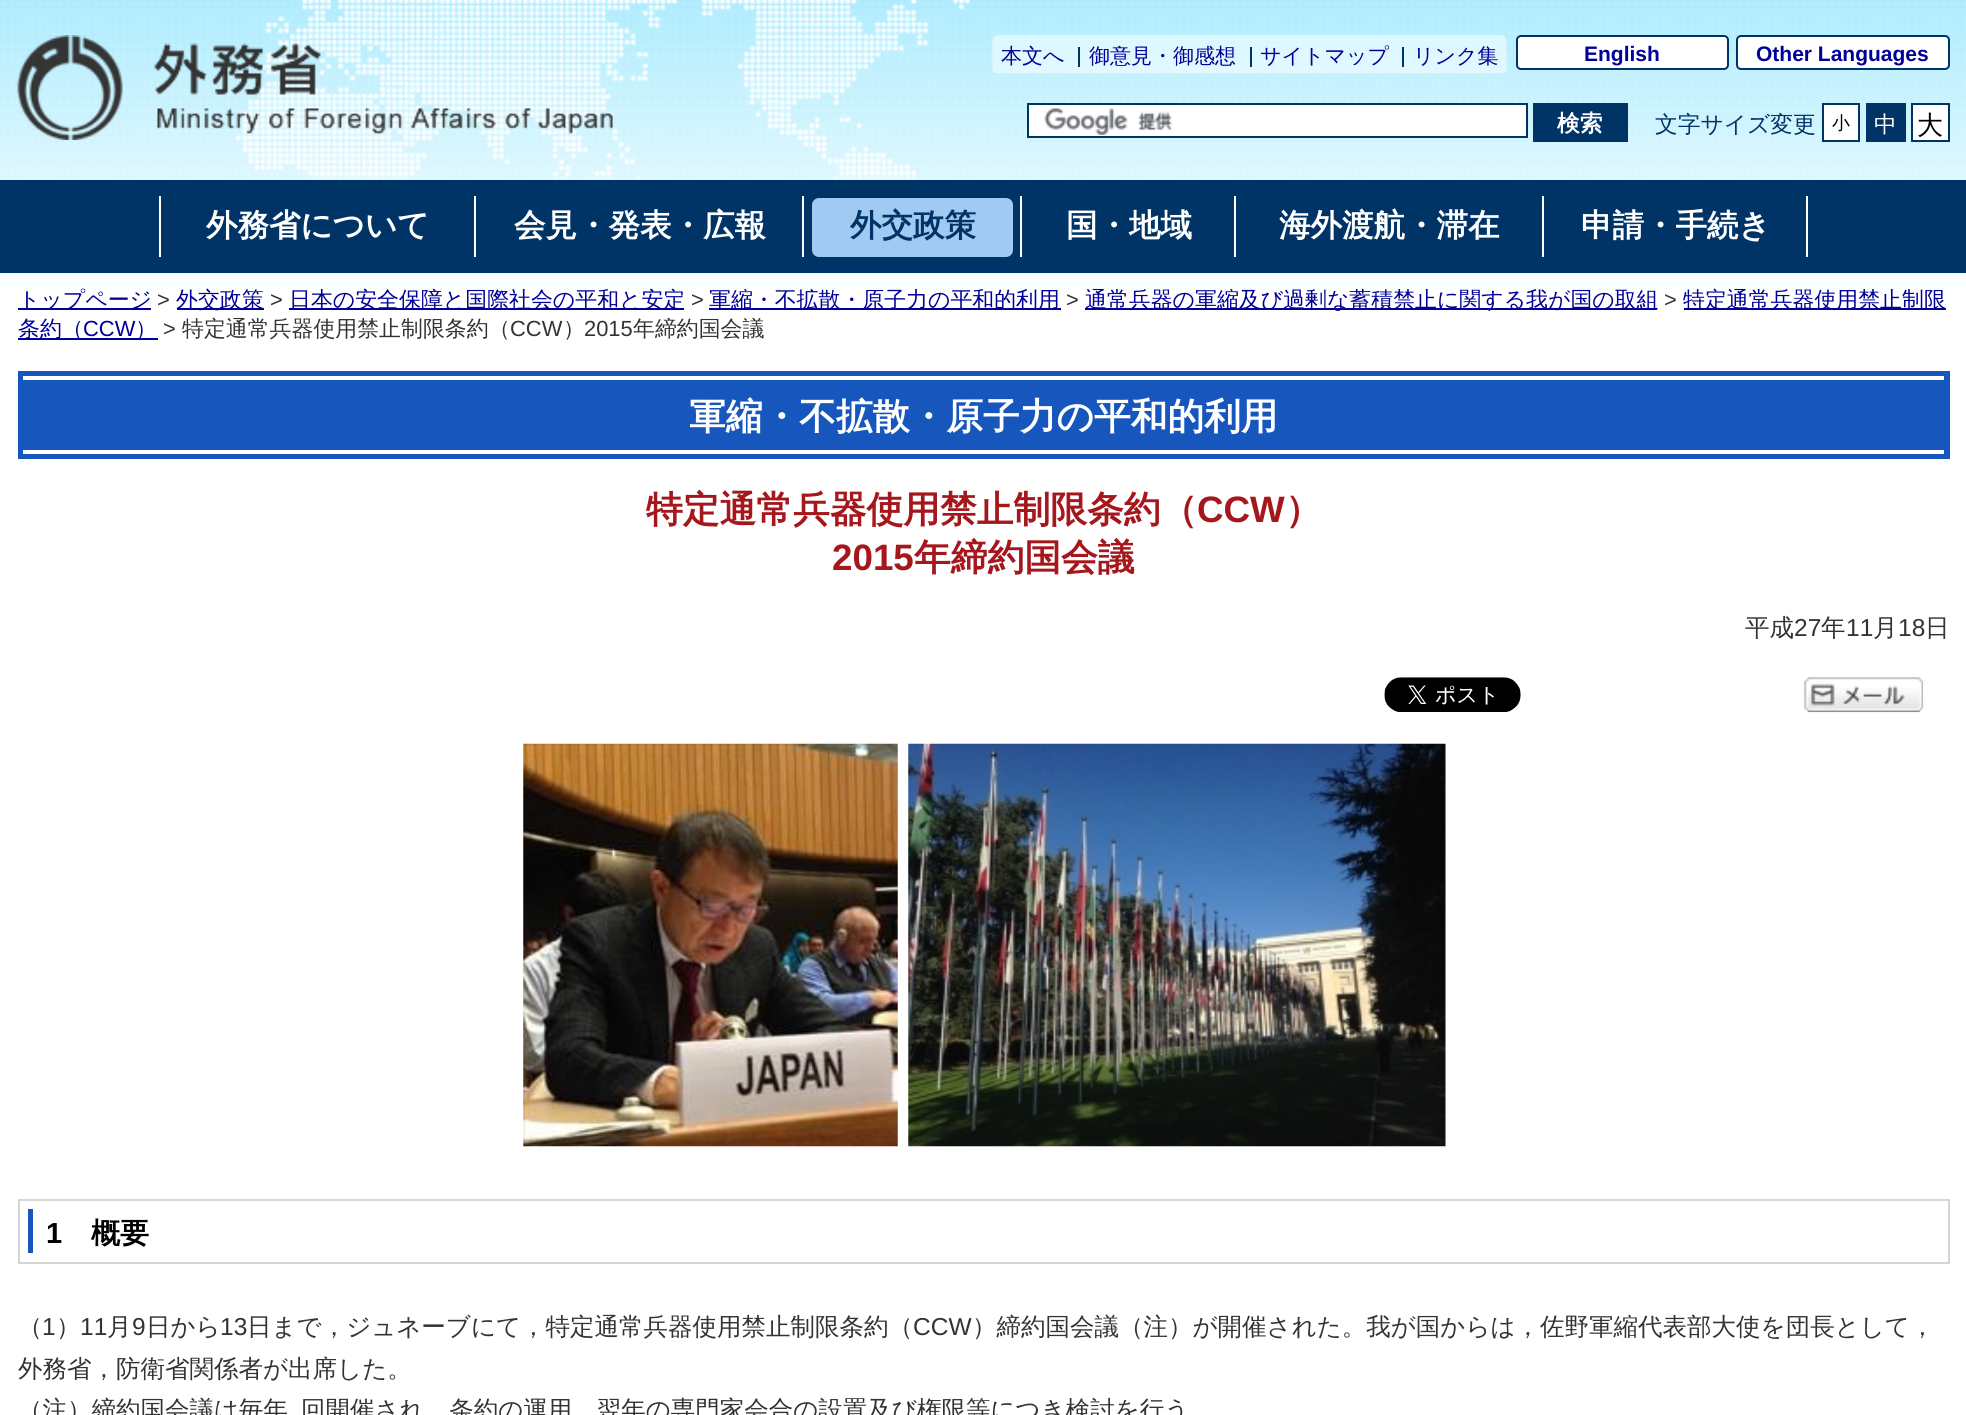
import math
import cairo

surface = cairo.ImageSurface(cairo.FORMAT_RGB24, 1966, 1415)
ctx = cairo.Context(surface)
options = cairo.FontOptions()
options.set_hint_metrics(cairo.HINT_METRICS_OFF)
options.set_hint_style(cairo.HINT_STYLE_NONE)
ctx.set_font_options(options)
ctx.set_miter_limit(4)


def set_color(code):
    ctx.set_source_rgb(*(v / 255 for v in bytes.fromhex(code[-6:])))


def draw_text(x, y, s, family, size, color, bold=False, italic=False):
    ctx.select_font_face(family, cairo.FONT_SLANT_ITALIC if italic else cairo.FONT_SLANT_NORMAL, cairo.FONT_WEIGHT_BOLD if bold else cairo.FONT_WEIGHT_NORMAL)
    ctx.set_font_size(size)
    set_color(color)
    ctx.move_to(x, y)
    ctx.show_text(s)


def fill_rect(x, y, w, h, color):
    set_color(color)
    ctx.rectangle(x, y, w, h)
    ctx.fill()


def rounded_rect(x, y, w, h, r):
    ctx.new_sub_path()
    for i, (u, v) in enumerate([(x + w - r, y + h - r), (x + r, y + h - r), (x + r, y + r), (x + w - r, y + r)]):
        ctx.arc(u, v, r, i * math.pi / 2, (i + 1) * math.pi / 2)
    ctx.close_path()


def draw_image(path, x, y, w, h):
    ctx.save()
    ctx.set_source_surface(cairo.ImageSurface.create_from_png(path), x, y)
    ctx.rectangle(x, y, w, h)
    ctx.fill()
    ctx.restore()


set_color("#ffffff")
ctx.paint()
draw_image("assets/img1.png", 0, 0, 1966, 289)
draw_image("assets/img2.png", 236, 0, 734, 179)
draw_image("assets/img3.png", 17, 35, 596, 105)
draw_image("assets/img4.png", 992, 35, 515, 39)
draw_text(1001, 63, "本文へ", "WenQuanYi Zen Hei Medium", 21, "#000099")
draw_text(1089, 63, "御意見・御感想", "WenQuanYi Zen Hei Medium", 21, "#000099")
fill_rect(1078, 47, 2, 20, "#003366")
draw_text(1260, 63, "サイトマップ", "WenQuanYi Zen Hei Medium", 21, "#000099")
fill_rect(1250, 47, 2, 20, "#003366")
draw_text(1413, 63, "リンク集", "WenQuanYi Zen Hei Medium", 21, "#000099")
fill_rect(1402, 47, 2, 20, "#003366")
set_color("#ffffff")
rounded_rect(1517, 36, 211, 33, 4)
ctx.fill_preserve()
set_color("#003366")
ctx.stroke()
draw_text(1584, 61, "English", "Liberation Sans", 21, "#000099", bold=True)
set_color("#ffffff")
rounded_rect(1737, 36, 212, 33, 4)
ctx.fill_preserve()
set_color("#003366")
ctx.stroke()
draw_text(1756, 61, "Other Languages", "Liberation Sans", 21, "#000099", bold=True)
fill_rect(1029, 105, 497, 31, "#ffffff")
draw_image("assets/img5.png", 1044, 108, 129, 27)
ctx.rectangle(1028, 104, 499, 33)
set_color("#003366")
ctx.stroke()
fill_rect(1533, 103, 95, 39, "#003366")
draw_text(1557, 131, "検索", "WenQuanYi Zen Hei", 22.75, "#ffffff", bold=True)
draw_text(1655, 132, "文字サイズ変更", "WenQuanYi Zen Hei Medium", 22.75, "#003366")
set_color("#ffffff")
ctx.rectangle(1823, 104, 36, 37)
ctx.fill_preserve()
set_color("#003366")
ctx.stroke()
draw_text(1832, 129, "小", "WenQuanYi Zen Hei Medium", 18, "#000000")
fill_rect(1866, 103, 40, 39, "#003366")
draw_text(1874, 132, "中", "WenQuanYi Zen Hei Medium", 22.75, "#ffffff")
ctx.rectangle(1912, 104, 37, 37)
ctx.fill_preserve()
set_color("#003366")
ctx.stroke()
draw_text(1917, 134, "大", "WenQuanYi Zen Hei Medium", 26, "#000000")
fill_rect(0, 180, 1966, 93, "#003366")
fill_rect(159, 196, 2, 61, "#ffffff")
draw_text(206, 236, "外務省について", "WenQuanYi Zen Hei", 31.5, "#ffffff", bold=True)
fill_rect(474, 196, 2, 61, "#ffffff")
draw_text(514, 236, "会見・発表・広報", "WenQuanYi Zen Hei", 31.5, "#ffffff", bold=True)
fill_rect(802, 196, 2, 61, "#ffffff")
set_color("#a1caf2")
rounded_rect(812, 198, 201, 59, 7)
ctx.fill()
draw_text(850, 236, "外交政策", "WenQuanYi Zen Hei", 31.5, "#003366", bold=True)
fill_rect(1020, 196, 2, 61, "#ffffff")
draw_text(1066, 236, "国・地域", "WenQuanYi Zen Hei", 31.5, "#ffffff", bold=True)
fill_rect(1234, 196, 2, 61, "#ffffff")
draw_text(1279, 236, "海外渡航・滞在", "WenQuanYi Zen Hei", 31.5, "#ffffff", bold=True)
fill_rect(1542, 196, 2, 61, "#ffffff")
draw_text(1581, 236, "申請・手続き", "WenQuanYi Zen Hei", 31.5, "#ffffff", bold=True)
fill_rect(1806, 196, 2, 61, "#ffffff")
fill_rect(18, 308, 133, 2, "#000099")
draw_text(18, 307, "トップページ", "WenQuanYi Zen Hei Medium", 21.9, "#000099")
draw_text(157, 307, ">", "Liberation Sans", 21.9, "#333333")
fill_rect(177, 308, 87, 2, "#000099")
draw_text(176, 307, "外交政策", "WenQuanYi Zen Hei Medium", 21.9, "#000099")
draw_text(270, 307, ">", "Liberation Sans", 21.9, "#333333")
fill_rect(289, 308, 395, 2, "#000099")
draw_text(289, 307, "日本の安全保障と国際社会の平和と安定", "WenQuanYi Zen Hei Medium", 21.9, "#000099")
draw_text(691, 307, ">", "Liberation Sans", 21.9, "#333333")
fill_rect(709, 308, 352, 2, "#000099")
draw_text(709, 307, "軍縮・不拡散・原子力の平和的利用", "WenQuanYi Zen Hei Medium", 21.9, "#000099")
draw_text(1066, 307, ">", "Liberation Sans", 21.9, "#333333")
fill_rect(1085, 308, 572, 2, "#000099")
draw_text(1085, 307, "通常兵器の軍縮及び過剰な蓄積禁止に関する我が国の取組", "WenQuanYi Zen Hei Medium", 21.9, "#000099")
draw_text(1664, 307, ">", "Liberation Sans", 21.9, "#333333")
fill_rect(1684, 308, 262, 2, "#000099")
draw_text(1683, 307, "特定通常兵器使用禁止制限", "WenQuanYi Zen Hei Medium", 21.9, "#000099")
fill_rect(18, 338, 140, 2, "#000099")
draw_text(18, 336, "条約（", "WenQuanYi Zen Hei Medium", 21.9, "#000099")
draw_text(83, 336, "CCW", "Liberation Sans", 21.9, "#000099")
draw_text(135, 336, "）", "WenQuanYi Zen Hei Medium", 21.9, "#000099")
draw_text(163, 336, ">", "Liberation Sans", 21.9, "#333333")
draw_text(182, 336, "特定通常兵器使用禁止制限条約（", "WenQuanYi Zen Hei Medium", 21.9, "#333333")
draw_text(510, 336, "CCW", "Liberation Sans", 21.9, "#333333")
draw_text(563, 336, "）", "WenQuanYi Zen Hei Medium", 21.9, "#333333")
draw_text(584, 336, "2015", "Liberation Sans", 21.9, "#333333")
draw_text(633, 336, "年締約国会議", "WenQuanYi Zen Hei Medium", 21.9, "#333333")
fill_rect(18, 371, 1932, 88, "#1756bd")
fill_rect(23, 376, 1921, 4, "#ffffff")
fill_rect(23, 450, 1921, 4, "#ffffff")
draw_text(689, 429, "軍縮・不拡散・原子力の平和的利用", "WenQuanYi Zen Hei", 36.75, "#ffffff", bold=True)
draw_text(646, 522, "特定通常兵器使用禁止制限条約（", "WenQuanYi Zen Hei", 36.75, "#a5171c", bold=True)
draw_text(1197, 522, "CCW", "Liberation Sans", 36.75, "#a5171c", bold=True)
draw_text(1285, 522, "）", "WenQuanYi Zen Hei", 36.75, "#a5171c", bold=True)
draw_text(832, 570, "2015", "Liberation Sans", 36.75, "#a5171c", bold=True)
draw_text(914, 570, "年締約国会議", "WenQuanYi Zen Hei", 36.75, "#a5171c", bold=True)
draw_text(1745, 636, "平成", "WenQuanYi Zen Hei Medium", 24.5, "#333333")
draw_text(1794, 636, "27", "Liberation Sans", 24.5, "#333333")
draw_text(1821, 636, "年", "WenQuanYi Zen Hei Medium", 24.5, "#333333")
draw_text(1846, 636, "11", "Liberation Sans", 24.5, "#333333")
draw_text(1873, 636, "月", "WenQuanYi Zen Hei Medium", 24.5, "#333333")
draw_text(1898, 636, "18", "Liberation Sans", 24.5, "#333333")
draw_text(1925, 636, "日", "WenQuanYi Zen Hei Medium", 24.5, "#333333")
draw_image("assets/img6.png", 1384, 677, 137, 35)
draw_image("assets/img7.png", 1804, 677, 120, 36)
draw_image("assets/img8.png", 523, 743, 375, 404)
draw_image("assets/img9.png", 908, 743, 538, 404)
ctx.rectangle(19, 1200, 1930, 63)
set_color("#d5d5d5")
ctx.stroke()
fill_rect(28, 1209, 5, 44, "#1756bd")
draw_text(46, 1243, "1", "Liberation Sans", 29, "#000000", bold=True)
draw_text(91, 1243, "概要", "WenQuanYi Zen Hei", 29, "#000000", bold=True)
draw_text(18, 1335, "（", "WenQuanYi Zen Hei Medium", 24.5, "#333333")
draw_text(42, 1335, "1", "Liberation Sans", 24.5, "#333333")
draw_text(56, 1335, "）", "WenQuanYi Zen Hei Medium", 24.5, "#333333")
draw_text(80, 1335, "11", "Liberation Sans", 24.5, "#333333")
draw_text(107, 1335, "月", "WenQuanYi Zen Hei Medium", 24.5, "#333333")
draw_text(132, 1335, "9", "Liberation Sans", 24.5, "#333333")
draw_text(146, 1335, "日から", "WenQuanYi Zen Hei Medium", 24.5, "#333333")
draw_text(220, 1335, "13", "Liberation Sans", 24.5, "#333333")
draw_text(247, 1335, "日まで，ジュネーブにて，特定通常兵器使用禁止制限条約（", "WenQuanYi Zen Hei Medium", 24.5, "#333333")
draw_text(913, 1335, "CCW", "Liberation Sans", 24.5, "#333333")
draw_text(972, 1335, "）締約国会議（注）が開催された。我が国からは，佐野軍縮代表部大使を団長として，", "WenQuanYi Zen Hei Medium", 24.5, "#333333")
draw_text(18, 1377, "外務省，防衛省関係者が出席した。", "WenQuanYi Zen Hei Medium", 24.5, "#333333")
draw_text(18, 1418, "（注）締約国会議は毎年", "WenQuanYi Zen Hei Medium", 24.5, "#333333")
draw_text(301, 1418, "回開催され，条約の運用，翌年の専門家会合の設置及び権限等につき検討を行う", "WenQuanYi Zen Hei Medium", 24.5, "#333333")
surface.write_to_png("output.png")
